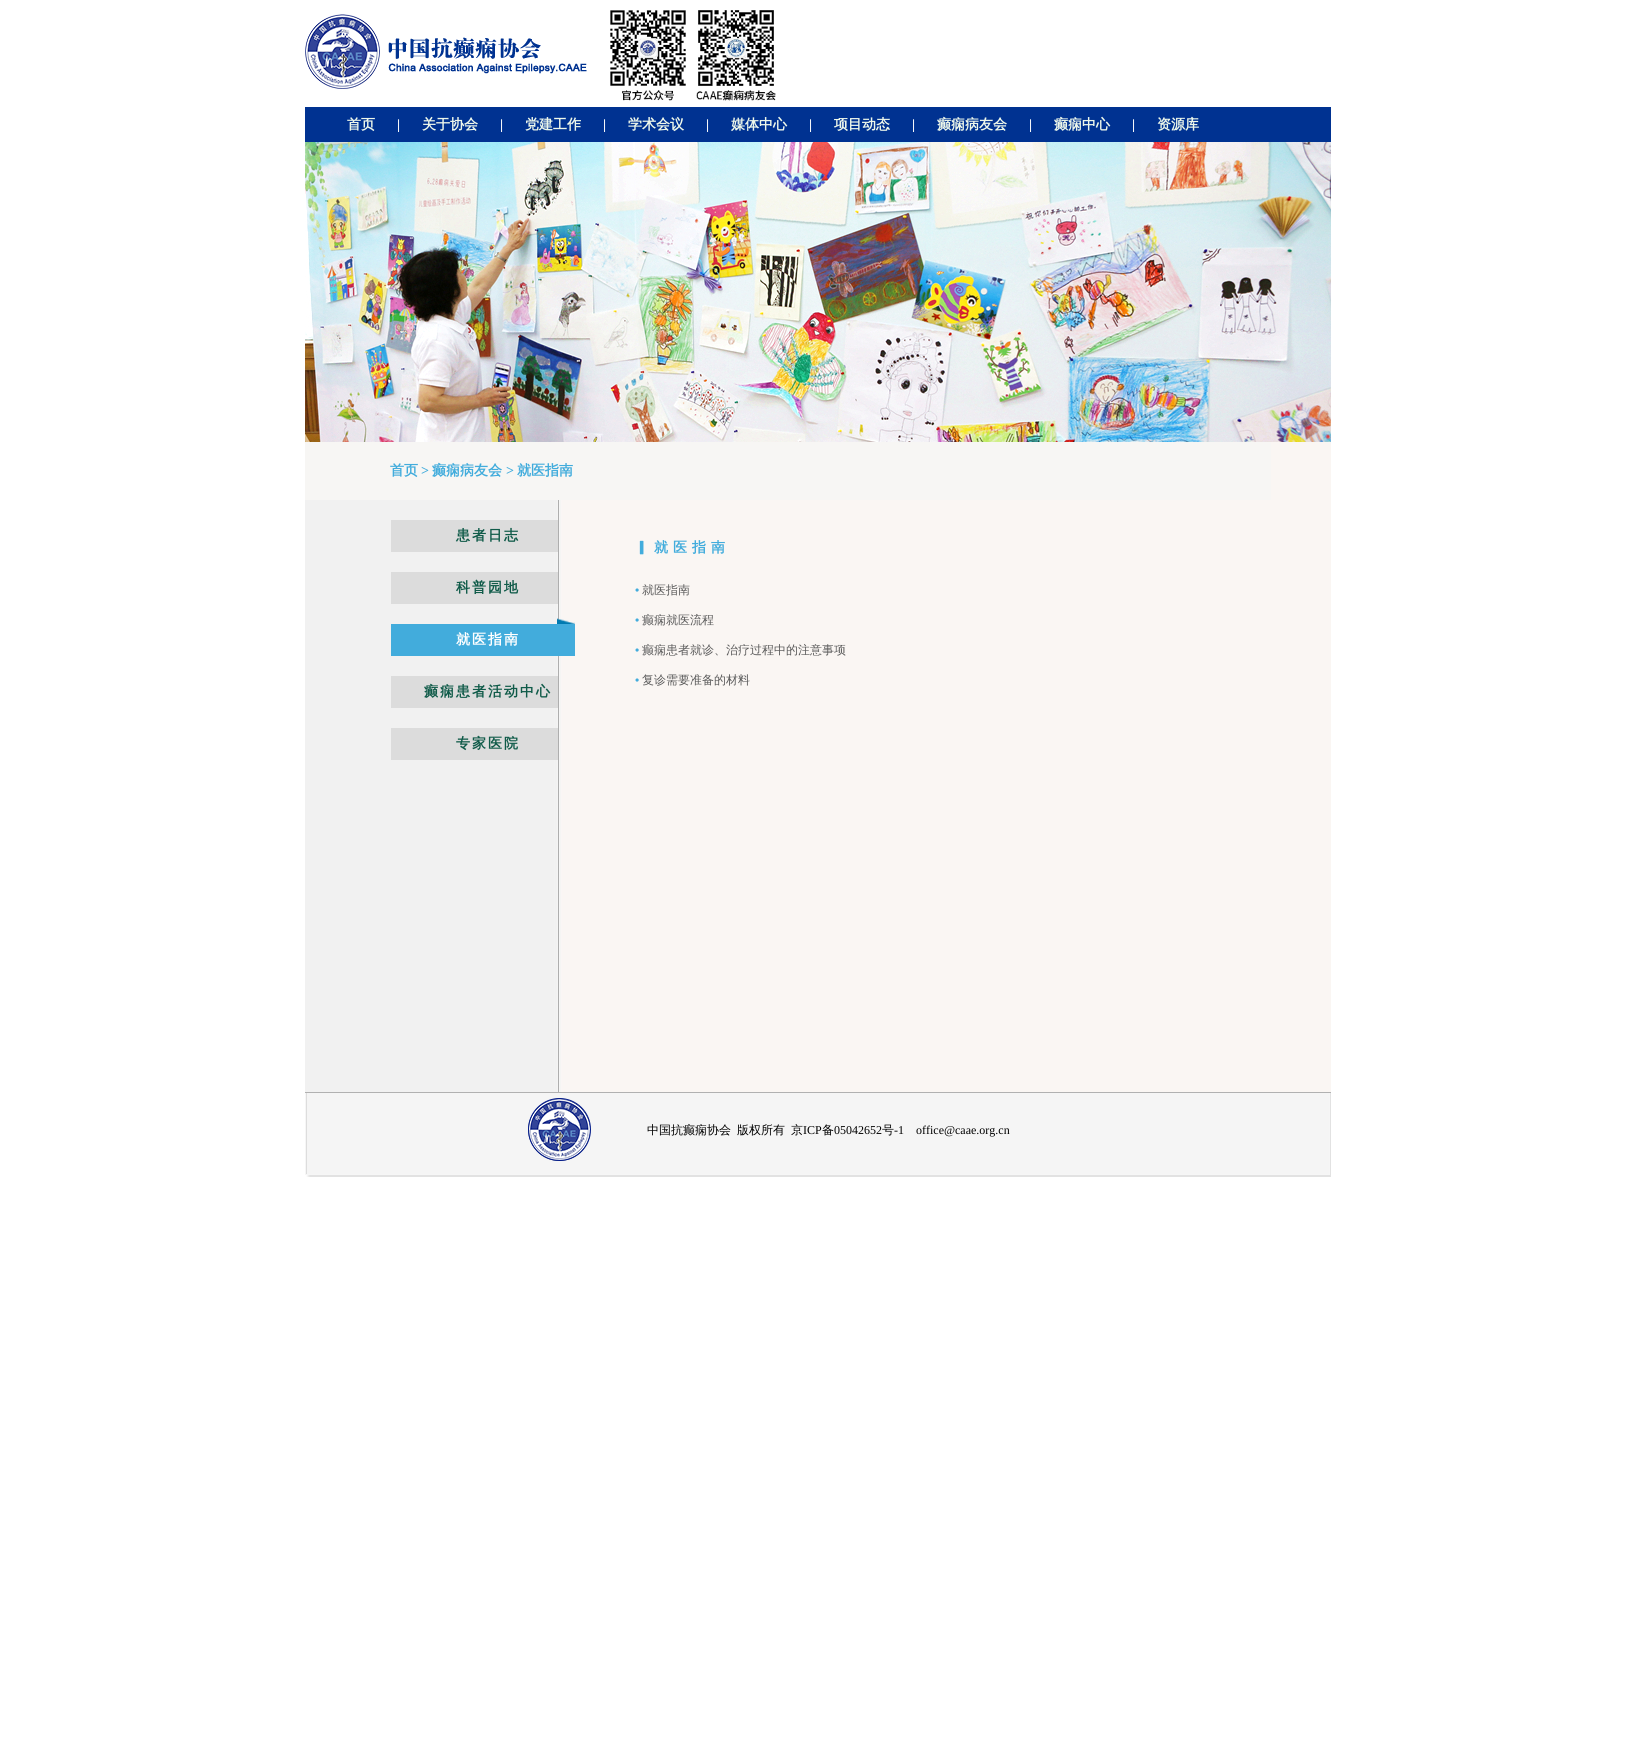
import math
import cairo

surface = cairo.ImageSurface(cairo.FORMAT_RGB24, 1635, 1742)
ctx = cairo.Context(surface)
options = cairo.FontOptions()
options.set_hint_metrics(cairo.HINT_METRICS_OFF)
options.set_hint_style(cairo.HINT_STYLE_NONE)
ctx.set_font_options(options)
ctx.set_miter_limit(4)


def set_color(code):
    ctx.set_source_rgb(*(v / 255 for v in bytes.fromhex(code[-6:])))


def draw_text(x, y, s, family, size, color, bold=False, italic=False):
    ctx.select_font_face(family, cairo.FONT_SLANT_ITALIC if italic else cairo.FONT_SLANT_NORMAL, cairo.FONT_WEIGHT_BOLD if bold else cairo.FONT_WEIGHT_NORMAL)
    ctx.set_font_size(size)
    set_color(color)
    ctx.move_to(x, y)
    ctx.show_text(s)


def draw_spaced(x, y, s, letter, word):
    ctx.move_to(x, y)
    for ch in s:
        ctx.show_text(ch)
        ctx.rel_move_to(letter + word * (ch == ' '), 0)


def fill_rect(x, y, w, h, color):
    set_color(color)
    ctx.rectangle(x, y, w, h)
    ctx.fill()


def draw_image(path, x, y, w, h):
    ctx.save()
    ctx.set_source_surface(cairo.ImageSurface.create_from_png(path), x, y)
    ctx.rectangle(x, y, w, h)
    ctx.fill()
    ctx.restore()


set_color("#ffffff")
ctx.paint()
draw_image("assets/img1.png", 305, 14, 282, 75)
draw_image("assets/img2.png", 610, 10, 76, 91)
draw_image("assets/img3.png", 696, 10, 80, 91)
fill_rect(305, 107, 1026, 35, "#003291")
draw_text(347, 129, "首页", "WenQuanYi Zen Hei", 14, "#edf7ea", bold=True)
draw_text(397, 129, "|", "Liberation Serif", 14, "#ffffff", bold=True)
draw_text(422, 129, "关于协会", "WenQuanYi Zen Hei", 14, "#edf7ea", bold=True)
draw_text(500, 129, "|", "Liberation Serif", 14, "#ffffff", bold=True)
draw_text(525, 129, "党建工作", "WenQuanYi Zen Hei", 14, "#edf7ea", bold=True)
draw_text(603, 129, "|", "Liberation Serif", 14, "#ffffff", bold=True)
draw_text(628, 129, "学术会议", "WenQuanYi Zen Hei", 14, "#edf7ea", bold=True)
draw_text(706, 129, "|", "Liberation Serif", 14, "#ffffff", bold=True)
draw_text(731, 129, "媒体中心", "WenQuanYi Zen Hei", 14, "#edf7ea", bold=True)
draw_text(809, 129, "|", "Liberation Serif", 14, "#ffffff", bold=True)
draw_text(834, 129, "项目动态", "WenQuanYi Zen Hei", 14, "#edf7ea", bold=True)
draw_text(912, 129, "|", "Liberation Serif", 14, "#ffffff", bold=True)
draw_text(937, 129, "癫痫病友会", "WenQuanYi Zen Hei", 14, "#edf7ea", bold=True)
draw_text(1029, 129, "|", "Liberation Serif", 14, "#ffffff", bold=True)
draw_text(1054, 129, "癫痫中心", "WenQuanYi Zen Hei", 14, "#edf7ea", bold=True)
draw_text(1132, 129, "|", "Liberation Serif", 14, "#ffffff", bold=True)
draw_text(1157, 129, "资源库", "WenQuanYi Zen Hei", 14, "#edf7ea", bold=True)
draw_image("assets/img4.png", 305, 142, 1026, 300)
draw_image("assets/img5.png", 305, 442, 1026, 650)
fill_rect(305, 442, 966, 58, "#f7f6f4")
draw_text(390, 475, "首页", "WenQuanYi Zen Hei", 14, "#42acdc", bold=True)
draw_text(421, 475, ">", "Liberation Serif", 14, "#42acdc", bold=True)
draw_text(432, 475, "癫痫病友会", "WenQuanYi Zen Hei", 14, "#42acdc", bold=True)
draw_text(506, 475, ">", "Liberation Serif", 14, "#42acdc", bold=True)
draw_text(517, 475, "就医指南", "WenQuanYi Zen Hei", 14, "#42acdc", bold=True)
fill_rect(391, 520, 167, 32, "#dcdcdc")
set_color("#105b49")
draw_spaced(456, 540, "患者日志", 2, 0)
fill_rect(391, 572, 167, 32, "#dcdcdc")
set_color("#105b49")
draw_spaced(456, 592, "科普园地", 2, 0)
draw_image("assets/img6.png", 391, 618, 184, 38)
set_color("#ffffff")
draw_spaced(456, 644, "就医指南", 2, 0)
fill_rect(391, 676, 167, 32, "#dcdcdc")
set_color("#105b49")
draw_spaced(424, 696, "癫痫患者活动中心", 2, 0)
fill_rect(391, 728, 167, 32, "#dcdcdc")
set_color("#105b49")
draw_spaced(456, 748, "专家医院", 2, 0)
set_color("#42acdc")
draw_spaced(635, 552, "▎就医指南", 5, 0)
draw_text(635, 594, "•", "Liberation Serif", 12, "#42acdc", bold=True)
draw_text(642, 594, "就医指南", "WenQuanYi Zen Hei Medium", 12, "#5a5a5a")
draw_text(635, 624, "•", "Liberation Serif", 12, "#42acdc", bold=True)
draw_text(642, 624, "癫痫就医流程", "WenQuanYi Zen Hei Medium", 12, "#5a5a5a")
draw_text(635, 654, "•", "Liberation Serif", 12, "#42acdc", bold=True)
draw_text(642, 654, "癫痫患者就诊、治疗过程中的注意事项", "WenQuanYi Zen Hei Medium", 12, "#5a5a5a")
draw_text(635, 684, "•", "Liberation Serif", 12, "#42acdc", bold=True)
draw_text(642, 684, "复诊需要准备的材料", "WenQuanYi Zen Hei Medium", 12, "#5a5a5a")
fill_rect(305, 1092, 1026, 1, "#b1b1b1")
draw_image("assets/img7.png", 305, 1093, 1026, 84)
draw_image("assets/img8.png", 528, 1098, 63, 63)
draw_text(647, 1134, "中国抗癫痫协会", "WenQuanYi Zen Hei Medium", 12, "#000000")
draw_text(737, 1134, "版权所有", "WenQuanYi Zen Hei Medium", 12, "#000000")
draw_text(791, 1134, "京", "WenQuanYi Zen Hei Medium", 12, "#000000")
draw_text(803, 1134, "ICP", "Liberation Serif", 12, "#000000")
draw_text(822, 1134, "备", "WenQuanYi Zen Hei Medium", 12, "#000000")
draw_text(834, 1134, "05042652", "Liberation Serif", 12, "#000000")
draw_text(882, 1134, "号", "WenQuanYi Zen Hei Medium", 12, "#000000")
draw_text(894, 1134, "-1", "Liberation Serif", 12, "#000000")
draw_text(916, 1134, "office@caae.org.cn", "Liberation Serif", 12, "#000000")
surface.write_to_png("output.png")
